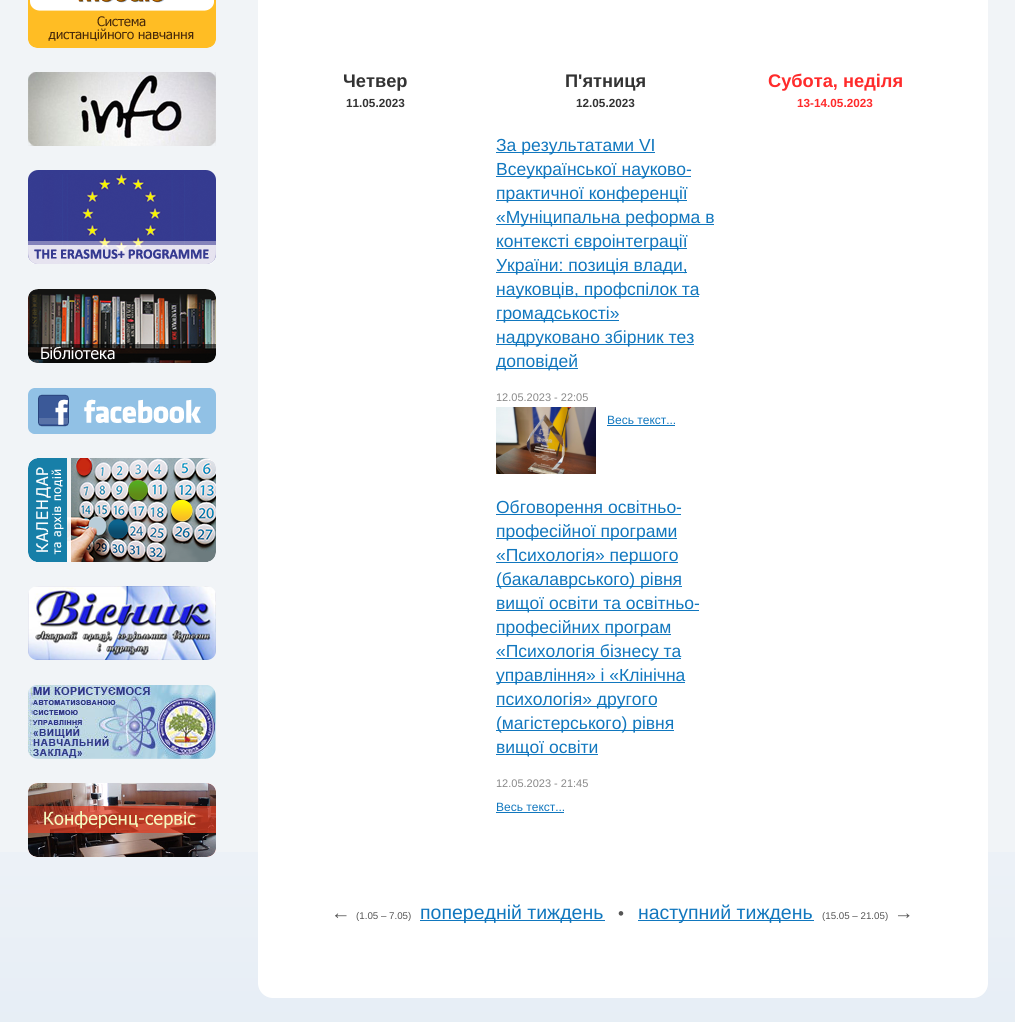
import math
import cairo

surface = cairo.ImageSurface(cairo.FORMAT_RGB24, 1015, 1022)
ctx = cairo.Context(surface)
options = cairo.FontOptions()
options.set_hint_metrics(cairo.HINT_METRICS_OFF)
options.set_hint_style(cairo.HINT_STYLE_NONE)
ctx.set_font_options(options)
ctx.set_miter_limit(4)


def set_color(code):
    ctx.set_source_rgb(*(v / 255 for v in bytes.fromhex(code[-6:])))


def draw_text(x, y, s, family, size, color, bold=False, italic=False):
    ctx.select_font_face(family, cairo.FONT_SLANT_ITALIC if italic else cairo.FONT_SLANT_NORMAL, cairo.FONT_WEIGHT_BOLD if bold else cairo.FONT_WEIGHT_NORMAL)
    ctx.set_font_size(size)
    set_color(color)
    ctx.move_to(x, y)
    ctx.show_text(s)


def fill_rect(x, y, w, h, color):
    set_color(color)
    ctx.rectangle(x, y, w, h)
    ctx.fill()


def draw_image(path, x, y, w, h):
    ctx.save()
    ctx.set_source_surface(cairo.ImageSurface.create_from_png(path), x, y)
    ctx.rectangle(x, y, w, h)
    ctx.fill()
    ctx.restore()


set_color("#f1f4f7")
ctx.paint()
draw_image("assets/img1.png", 0, 852, 1015, 170)
draw_image("assets/img2.png", 28, 0, 188, 48)
draw_image("assets/img3.png", 28, 72, 188, 74)
draw_image("assets/img4.png", 28, 170, 188, 94)
draw_image("assets/img5.png", 28, 289, 188, 74)
draw_image("assets/img6.png", 28, 388, 188, 46)
draw_image("assets/img7.png", 28, 458, 188, 104)
draw_image("assets/img8.png", 28, 586, 188, 74)
draw_image("assets/img9.png", 28, 685, 188, 74)
draw_image("assets/img10.png", 28, 783, 188, 74)
fill_rect(258, 0, 730, 983, "#ffffff")
fill_rect(258, 983, 1, 1, "#ffffff")
fill_rect(259, 983, 1, 5, "#ffffff")
fill_rect(260, 983, 1, 7, "#ffffff")
fill_rect(261, 983, 1, 9, "#ffffff")
fill_rect(262, 983, 1, 10, "#ffffff")
fill_rect(263, 983, 1, 11, "#ffffff")
fill_rect(264, 983, 2, 12, "#ffffff")
fill_rect(266, 983, 2, 13, "#ffffff")
fill_rect(268, 983, 4, 14, "#ffffff")
fill_rect(272, 983, 1, 15, "#ffffff")
fill_rect(258, 984, 1, 1, "#fdfefe")
fill_rect(258, 985, 1, 1, "#fafbfd")
fill_rect(258, 986, 1, 1, "#f5f8fb")
fill_rect(258, 987, 1, 1, "#eff3f9")
fill_rect(259, 988, 1, 1, "#fdfefe")
fill_rect(259, 989, 1, 1, "#f4f7fb")
fill_rect(260, 990, 1, 1, "#fdfefe")
fill_rect(260, 991, 1, 1, "#eff4f9")
fill_rect(261, 992, 1, 1, "#f5f8fb")
fill_rect(262, 993, 1, 1, "#f7fafc")
fill_rect(263, 994, 1, 1, "#f5f8fb")
fill_rect(264, 995, 1, 1, "#eff4f9")
fill_rect(265, 995, 1, 1, "#fdfefe")
fill_rect(266, 996, 1, 1, "#f3f7fb")
fill_rect(267, 996, 1, 1, "#fdfefe")
fill_rect(268, 997, 1, 1, "#eef3f9")
fill_rect(269, 997, 1, 1, "#f5f8fb")
fill_rect(270, 997, 1, 1, "#fafbfd")
fill_rect(271, 997, 1, 1, "#fdfefe")
fill_rect(273, 983, 701, 15, "#ffffff")
fill_rect(974, 983, 4, 14, "#ffffff")
fill_rect(978, 983, 2, 13, "#ffffff")
fill_rect(980, 983, 2, 12, "#ffffff")
fill_rect(982, 983, 1, 11, "#ffffff")
fill_rect(983, 983, 1, 10, "#ffffff")
fill_rect(984, 983, 1, 9, "#ffffff")
fill_rect(985, 983, 1, 7, "#ffffff")
fill_rect(986, 983, 1, 5, "#ffffff")
fill_rect(987, 983, 1, 1, "#ffffff")
fill_rect(987, 984, 1, 1, "#fdfefe")
fill_rect(987, 985, 1, 1, "#fafbfd")
fill_rect(987, 986, 1, 1, "#f5f8fb")
fill_rect(987, 987, 1, 1, "#eff3f9")
fill_rect(986, 988, 1, 1, "#fdfefe")
fill_rect(986, 989, 1, 1, "#f4f7fb")
fill_rect(985, 990, 1, 1, "#fdfefe")
fill_rect(985, 991, 1, 1, "#eff4f9")
fill_rect(984, 992, 1, 1, "#f5f8fb")
fill_rect(983, 993, 1, 1, "#f7fafc")
fill_rect(982, 994, 1, 1, "#f5f8fb")
fill_rect(980, 995, 1, 1, "#fdfefe")
fill_rect(981, 995, 1, 1, "#eff4f9")
fill_rect(978, 996, 1, 1, "#fdfefe")
fill_rect(979, 996, 1, 1, "#f3f7fb")
fill_rect(974, 997, 1, 1, "#fdfefe")
fill_rect(975, 997, 1, 1, "#fafbfd")
fill_rect(976, 997, 1, 1, "#f5f8fb")
fill_rect(977, 997, 1, 1, "#eef3f9")
draw_text(343, 87, "Четвер", "Liberation Sans", 18.25, "#333333", bold=True)
draw_text(346, 107, "11.05.2023", "Liberation Sans", 11.75, "#333333", bold=True)
draw_text(565, 87, "П'ятниця", "Liberation Sans", 18.25, "#333333", bold=True)
draw_text(576, 107, "12.05.2023", "Liberation Sans", 11.75, "#333333", bold=True)
fill_rect(496, 152, 159, 1, "#1177be")
draw_text(496, 151, "За результатами VI", "Liberation Sans", 17.5, "#1177be")
fill_rect(496, 176, 195, 1, "#1177be")
draw_text(496, 175, "Всеукраїнської науково-", "Liberation Sans", 17.5, "#1177be")
fill_rect(496, 200, 191, 1, "#1177be")
draw_text(496, 199, "практичної конференції", "Liberation Sans", 17.5, "#1177be")
fill_rect(496, 224, 218, 1, "#1177be")
draw_text(496, 223, "«Муніципальна реформа в", "Liberation Sans", 17.5, "#1177be")
fill_rect(496, 248, 191, 1, "#1177be")
draw_text(496, 247, "контексті євроінтеграції", "Liberation Sans", 17.5, "#1177be")
fill_rect(496, 272, 191, 1, "#1177be")
draw_text(496, 271, "України: позиція влади,", "Liberation Sans", 17.5, "#1177be")
fill_rect(496, 296, 203, 1, "#1177be")
draw_text(496, 295, "науковців, профспілок та", "Liberation Sans", 17.5, "#1177be")
fill_rect(496, 320, 123, 1, "#1177be")
draw_text(496, 319, "громадськості»", "Liberation Sans", 17.5, "#1177be")
fill_rect(496, 344, 198, 1, "#1177be")
draw_text(496, 343, "надруковано збірник тез", "Liberation Sans", 17.5, "#1177be")
fill_rect(496, 368, 82, 1, "#1177be")
draw_text(496, 367, "доповідей", "Liberation Sans", 17.5, "#1177be")
draw_text(496, 401, "12.05.2023 - 22:05", "Liberation Sans", 11, "#888888")
draw_image("assets/img11.png", 496, 407, 100, 67)
draw_text(607, 424, "Весь текст...", "Liberation Sans", 12, "#1177be")
fill_rect(607, 425, 68, 1, "#1177be")
fill_rect(496, 514, 185, 1, "#1177be")
draw_text(496, 513, "Обговорення освітньо-", "Liberation Sans", 17.5, "#1177be")
fill_rect(496, 538, 181, 1, "#1177be")
draw_text(496, 537, "професійної програми", "Liberation Sans", 17.5, "#1177be")
fill_rect(496, 562, 182, 1, "#1177be")
draw_text(496, 561, "«Психологія» першого", "Liberation Sans", 17.5, "#1177be")
fill_rect(496, 586, 186, 1, "#1177be")
draw_text(496, 585, "(бакалаврського) рівня", "Liberation Sans", 17.5, "#1177be")
fill_rect(496, 610, 203, 1, "#1177be")
draw_text(496, 609, "вищої освіти та освітньо-", "Liberation Sans", 17.5, "#1177be")
fill_rect(496, 634, 175, 1, "#1177be")
draw_text(496, 633, "професійних програм", "Liberation Sans", 17.5, "#1177be")
fill_rect(496, 658, 185, 1, "#1177be")
draw_text(496, 657, "«Психологія бізнесу та", "Liberation Sans", 17.5, "#1177be")
fill_rect(496, 682, 189, 1, "#1177be")
draw_text(496, 681, "управління» і «Клінічна", "Liberation Sans", 17.5, "#1177be")
fill_rect(496, 706, 161, 1, "#1177be")
draw_text(496, 705, "психологія» другого", "Liberation Sans", 17.5, "#1177be")
fill_rect(496, 730, 178, 1, "#1177be")
draw_text(496, 729, "(магістерського) рівня", "Liberation Sans", 17.5, "#1177be")
fill_rect(496, 754, 102, 1, "#1177be")
draw_text(496, 753, "вищої освіти", "Liberation Sans", 17.5, "#1177be")
draw_text(496, 787, "12.05.2023 - 21:45", "Liberation Sans", 11, "#888888")
draw_text(496, 811, "Весь текст...", "Liberation Sans", 12, "#1177be")
fill_rect(496, 812, 68, 1, "#1177be")
draw_text(768, 87, "Субота, неділя", "Liberation Sans", 18.25, "#ff2b2b", bold=True)
draw_text(797, 107, "13-14.05.2023", "Liberation Sans", 11.75, "#ff2b2b", bold=True)
draw_text(331, 919, "←", "Liberation Sans", 19.5, "#555555")
draw_text(356, 919, "(1.05 – 7.05)", "Liberation Sans", 9.75, "#555555")
fill_rect(420, 920, 185, 1, "#1177be")
draw_text(420, 919, "попередній тиждень", "Liberation Sans", 19.5, "#1177be")
draw_text(618, 919, "•", "Liberation Sans", 17, "#555555")
fill_rect(638, 920, 176, 1, "#1177be")
draw_text(638, 919, "наступний тиждень", "Liberation Sans", 19.5, "#1177be")
draw_text(822, 919, "(15.05 – 21.05)", "Liberation Sans", 9.75, "#555555")
draw_text(894, 919, "→", "Liberation Sans", 19.5, "#555555")
surface.write_to_png("output.png")
